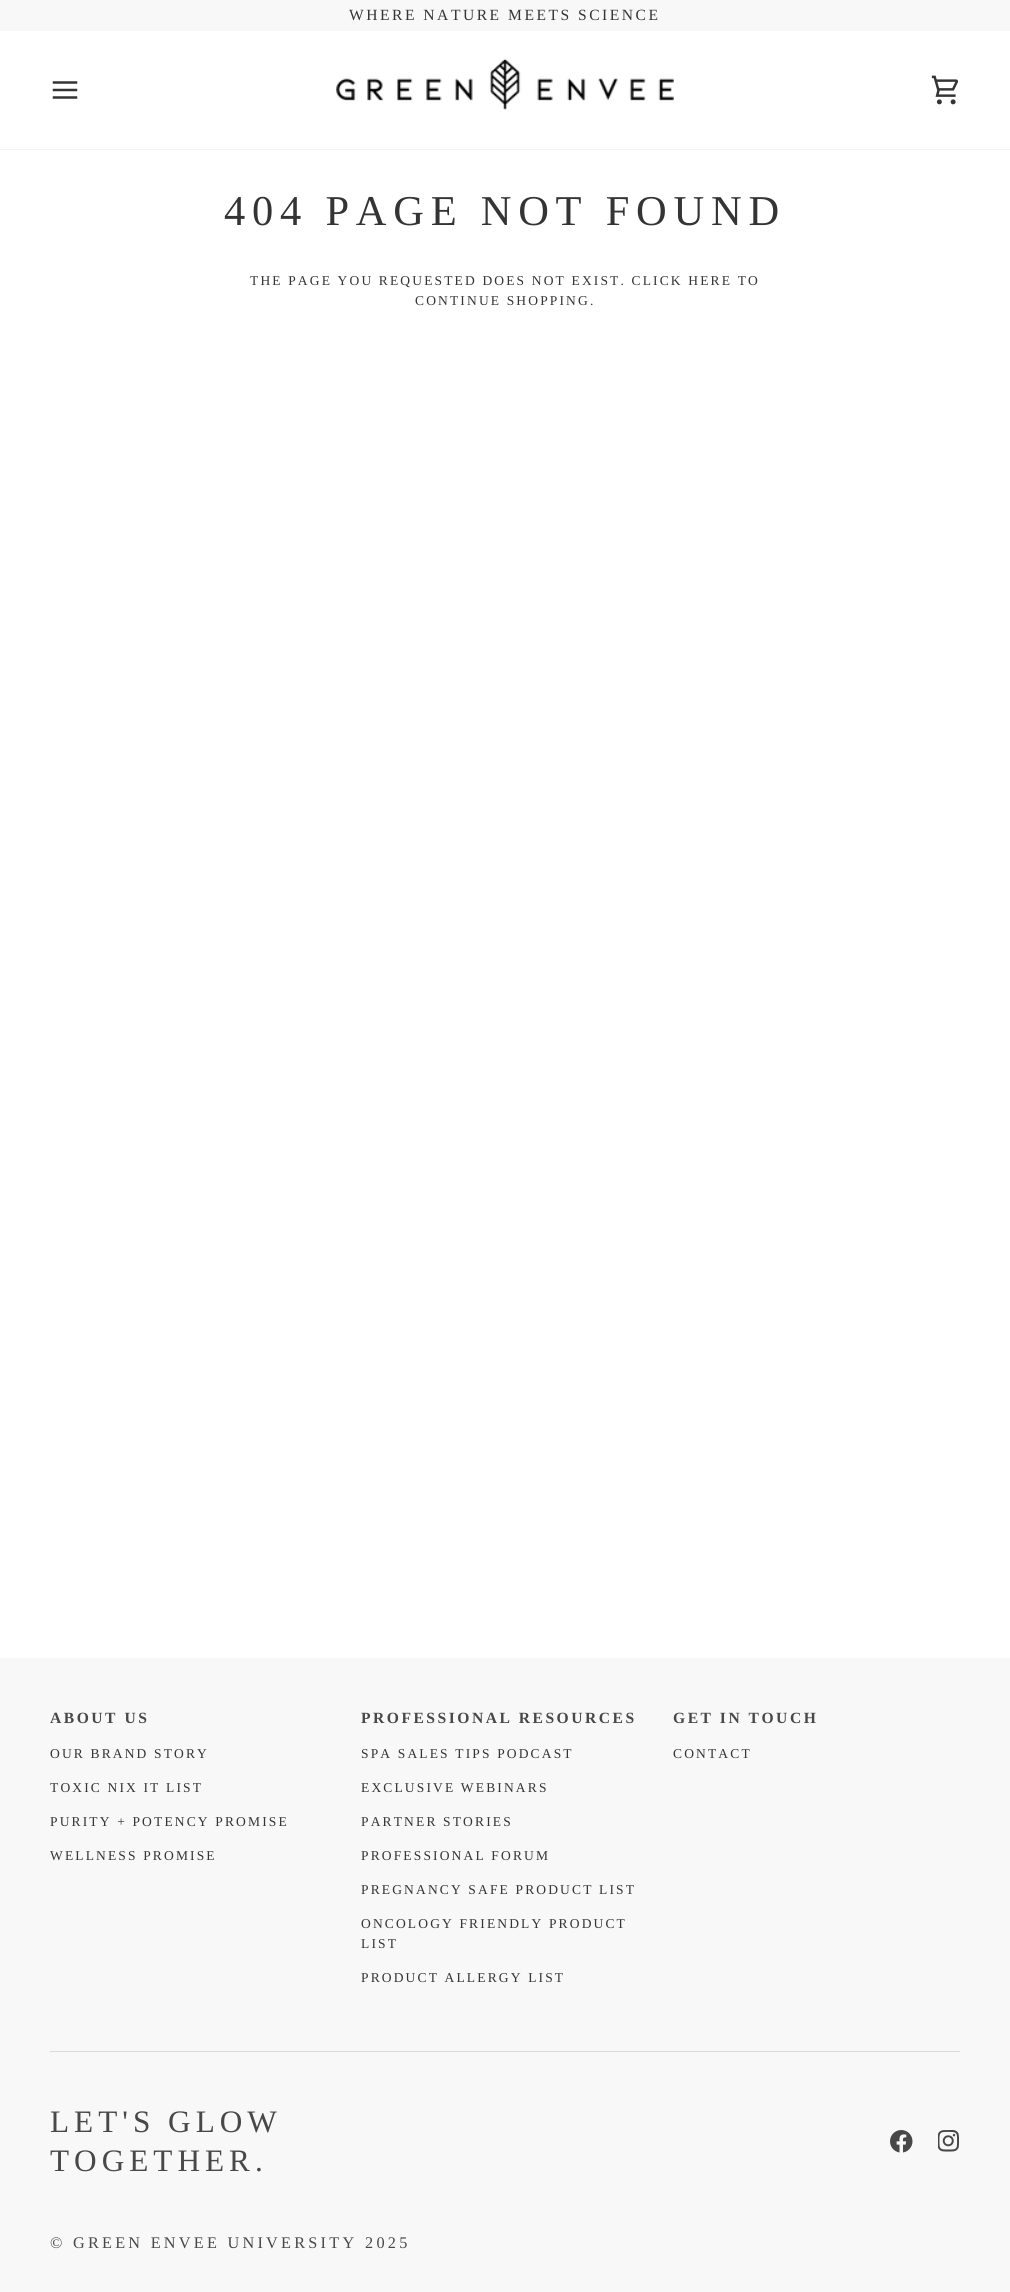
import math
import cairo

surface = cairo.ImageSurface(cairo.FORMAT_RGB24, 1010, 2292)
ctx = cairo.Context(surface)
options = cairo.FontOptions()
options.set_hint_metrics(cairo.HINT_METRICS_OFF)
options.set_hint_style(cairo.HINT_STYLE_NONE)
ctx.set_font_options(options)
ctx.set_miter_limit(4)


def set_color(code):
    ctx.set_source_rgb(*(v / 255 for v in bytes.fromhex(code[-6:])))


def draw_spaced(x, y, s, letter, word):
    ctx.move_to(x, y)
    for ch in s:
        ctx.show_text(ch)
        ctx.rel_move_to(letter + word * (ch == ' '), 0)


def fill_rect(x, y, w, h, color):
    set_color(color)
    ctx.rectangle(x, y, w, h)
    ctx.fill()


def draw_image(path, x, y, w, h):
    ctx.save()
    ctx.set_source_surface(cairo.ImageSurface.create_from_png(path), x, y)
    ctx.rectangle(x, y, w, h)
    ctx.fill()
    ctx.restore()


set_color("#ffffff")
ctx.paint()
fill_rect(0, 0, 1010, 31, "#f8f8f8")
ctx.select_font_face("Liberation Serif")
ctx.set_font_size(15.6)
set_color("#343434")
draw_spaced(349, 20, "WHERE NATURE MEETS SCIENCE", 2.5, 0)
fill_rect(0, 149, 1010, 1, "#f3f3f3")
ctx.new_path()
ctx.move_to(76, 82.5)
ctx.line_to(54, 82.5)
ctx.move_to(76, 90)
ctx.line_to(54, 90)
ctx.move_to(76, 97.5)
ctx.line_to(54, 97.5)
set_color("#343434")
ctx.set_line_width(2.5)
ctx.set_line_cap(cairo.LINE_CAP_SQUARE)
ctx.stroke()
draw_image("assets/img1.png", 336, 58, 338, 52)
draw_image("assets/img2.png", 931, 75, 28, 30)
ctx.set_font_size(42.5)
draw_spaced(224, 225, "404 PAGE NOT FOUND", 6.75, 0)
ctx.set_font_size(13.5)
draw_spaced(250, 285, "THE PAGE YOU REQUESTED DOES NOT EXIST. CLICK HERE TO", 2.15, 0)
draw_spaced(415, 305, "CONTINUE SHOPPING.", 2.15, 0)
fill_rect(0, 1658, 1010, 634, "#f8f8f8")
ctx.select_font_face("Liberation Serif", cairo.FONT_SLANT_NORMAL, cairo.FONT_WEIGHT_BOLD)
ctx.set_font_size(15.6)
set_color("#484848")
draw_spaced(50, 1723, "ABOUT US", 2.5, 0)
ctx.select_font_face("Liberation Serif")
ctx.set_font_size(13.5)
set_color("#343434")
draw_spaced(50, 1758, "OUR BRAND STORY", 2.15, 0)
draw_spaced(50, 1792, "TOXIC NIX IT LIST", 2.15, 0)
draw_spaced(50, 1826, "PURITY + POTENCY PROMISE", 2.15, 0)
draw_spaced(50, 1860, "WELLNESS PROMISE", 2.15, 0)
ctx.select_font_face("Liberation Serif", cairo.FONT_SLANT_NORMAL, cairo.FONT_WEIGHT_BOLD)
ctx.set_font_size(15.6)
set_color("#484848")
draw_spaced(361, 1723, "PROFESSIONAL RESOURCES", 2.5, 0)
ctx.select_font_face("Liberation Serif")
ctx.set_font_size(13.5)
set_color("#343434")
draw_spaced(361, 1758, "SPA SALES TIPS PODCAST", 2.15, 0)
draw_spaced(361, 1792, "EXCLUSIVE WEBINARS", 2.15, 0)
draw_spaced(361, 1826, "PARTNER STORIES", 2.15, 0)
draw_spaced(361, 1860, "PROFESSIONAL FORUM", 2.15, 0)
draw_spaced(361, 1894, "PREGNANCY SAFE PRODUCT LIST", 2.15, 0)
draw_spaced(361, 1928, "ONCOLOGY FRIENDLY PRODUCT", 2.15, 0)
draw_spaced(361, 1948, "LIST", 2.15, 0)
draw_spaced(361, 1982, "PRODUCT ALLERGY LIST", 2.15, 0)
ctx.select_font_face("Liberation Serif", cairo.FONT_SLANT_NORMAL, cairo.FONT_WEIGHT_BOLD)
ctx.set_font_size(15.6)
set_color("#484848")
draw_spaced(673, 1723, "GET IN TOUCH", 2.5, 0)
ctx.select_font_face("Liberation Serif")
ctx.set_font_size(13.5)
set_color("#343434")
draw_spaced(673, 1758, "CONTACT", 2.15, 0)
fill_rect(50, 2051, 910, 1, "#dbdbdb")
ctx.set_font_size(31.25)
set_color("#484848")
draw_spaced(50, 2132, "LET'S GLOW", 5, 0)
draw_spaced(50, 2171, "TOGETHER.", 5, 0)
draw_image("assets/img3.png", 890, 2130, 23, 23)
draw_image("assets/img4.png", 938, 2130, 21, 22)
ctx.set_font_size(16.25)
draw_spaced(50, 2248, "© GREEN ENVEE UNIVERSITY", 3.25, 0)
draw_spaced(365, 2248, "2025", 3.25, 0)
surface.write_to_png("output.png")
